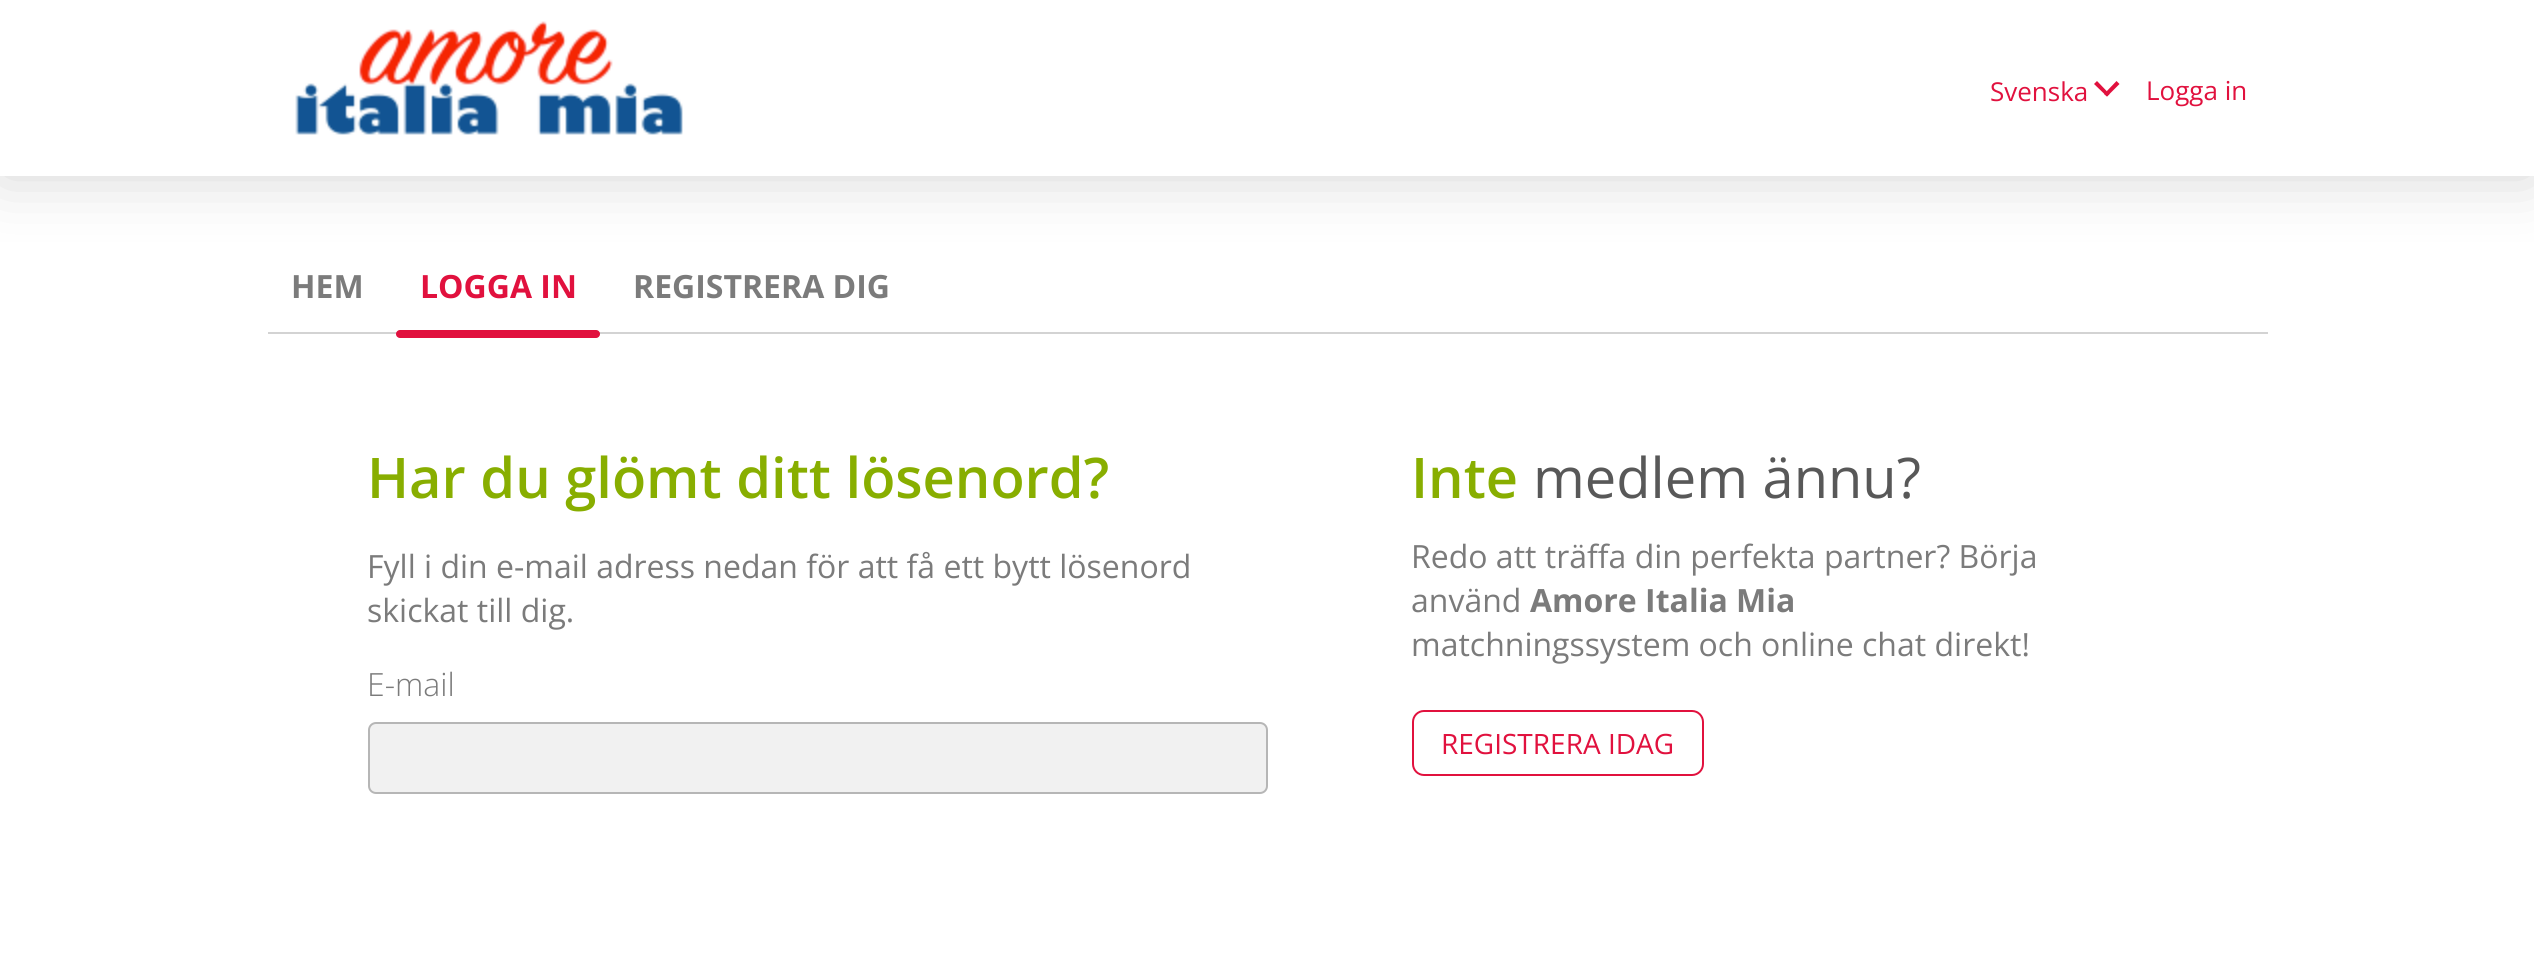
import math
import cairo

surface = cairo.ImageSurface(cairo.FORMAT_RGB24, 2534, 962)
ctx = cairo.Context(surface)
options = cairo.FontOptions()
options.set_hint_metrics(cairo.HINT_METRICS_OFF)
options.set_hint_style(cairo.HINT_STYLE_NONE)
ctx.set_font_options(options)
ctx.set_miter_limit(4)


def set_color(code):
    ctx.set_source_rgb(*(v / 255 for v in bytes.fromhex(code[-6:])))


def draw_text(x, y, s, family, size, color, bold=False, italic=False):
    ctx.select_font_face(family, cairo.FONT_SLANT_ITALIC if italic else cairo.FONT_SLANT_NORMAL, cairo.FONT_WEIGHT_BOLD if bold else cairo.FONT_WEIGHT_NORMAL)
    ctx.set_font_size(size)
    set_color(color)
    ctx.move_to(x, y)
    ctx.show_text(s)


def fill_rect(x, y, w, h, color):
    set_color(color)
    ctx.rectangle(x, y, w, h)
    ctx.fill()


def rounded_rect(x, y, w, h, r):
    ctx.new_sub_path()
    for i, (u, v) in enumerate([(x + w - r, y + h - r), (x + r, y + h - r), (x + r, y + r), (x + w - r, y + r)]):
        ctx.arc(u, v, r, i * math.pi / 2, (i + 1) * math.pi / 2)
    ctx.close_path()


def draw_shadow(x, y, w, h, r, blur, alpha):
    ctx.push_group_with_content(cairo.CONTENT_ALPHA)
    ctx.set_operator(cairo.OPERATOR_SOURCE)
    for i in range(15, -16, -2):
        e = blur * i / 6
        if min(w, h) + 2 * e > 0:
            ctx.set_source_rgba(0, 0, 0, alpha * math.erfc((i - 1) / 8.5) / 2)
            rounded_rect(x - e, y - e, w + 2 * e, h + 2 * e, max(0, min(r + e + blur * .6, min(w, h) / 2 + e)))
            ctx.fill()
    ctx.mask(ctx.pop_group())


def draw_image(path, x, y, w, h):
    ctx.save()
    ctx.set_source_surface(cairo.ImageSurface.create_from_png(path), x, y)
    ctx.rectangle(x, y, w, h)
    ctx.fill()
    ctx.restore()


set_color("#ffffff")
ctx.paint()
ctx.save()
ctx.rectangle(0, 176, 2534, 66)
ctx.clip()
set_color("#d3d3d3")
draw_shadow(0, 0, 2534, 176, 0, 32, 1)
ctx.restore()
draw_image("assets/img1.png", 295, 21, 388, 114)
draw_text(1990, 101, "Svenska", "Open Sans", 26, "#e1113e")
ctx.new_path()
ctx.move_to(2116.5, 81)
ctx.line_to(2119.5, 84)
ctx.line_to(2107, 96.5)
ctx.line_to(2104, 94)
ctx.close_path()
ctx.fill()
ctx.new_path()
ctx.move_to(2097, 81)
ctx.line_to(2109.5, 94)
ctx.line_to(2107, 96.5)
ctx.line_to(2094, 84)
ctx.close_path()
ctx.fill()
draw_text(2146, 100, "Logga in", "Open Sans", 26, "#e1113e")
fill_rect(268, 332, 2000, 2, "#d3d3d3")
draw_text(291, 298, "HEM", "Open Sans", 32, "#7b7b7b", bold=True)
draw_text(420, 298, "LOGGA IN", "Open Sans", 32, "#e1113e", bold=True)
rounded_rect(396, 330, 204, 8, 4)
ctx.fill()
draw_text(633, 298, "REGISTRERA DIG", "Open Sans", 32, "#7b7b7b", bold=True)
draw_text(367, 498, "Har du glömt ditt lösenord?", "Open Sans SemiBold", 56, "#88ae00")
draw_text(367, 578, "Fyll i din e-mail adress nedan för att få ett bytt lösenord", "Open Sans", 32, "#7b7b7b")
draw_text(367, 622, "skickat till dig.", "Open Sans", 32, "#7b7b7b")
draw_text(367, 696, "E-mail", "Open Sans Light", 32, "#7b7b7b")
set_color("#f1f1f1")
rounded_rect(369, 723, 898, 70, 7)
ctx.fill_preserve()
set_color("#b6b6b6")
ctx.stroke()
draw_text(1411, 498, "Inte", "Open Sans SemiBold", 56, "#88ae00")
draw_text(1533, 498, "medlem ännu?", "Open Sans", 56, "#585858")
draw_text(1411, 568, "Redo att träffa din perfekta partner? Börja", "Open Sans", 32, "#7b7b7b")
draw_text(1411, 612, "använd", "Open Sans", 32, "#7b7b7b")
draw_text(1530, 612, "Amore Italia Mia", "Open Sans", 32, "#7b7b7b", bold=True)
draw_text(1411, 656, "matchningssystem och online chat direkt!", "Open Sans", 32, "#7b7b7b")
rounded_rect(1413, 711, 290, 64, 11)
set_color("#e1113e")
ctx.stroke()
draw_text(1441, 754, "REGISTRERA IDAG", "Open Sans", 28, "#e1113e")
surface.write_to_png("output.png")
